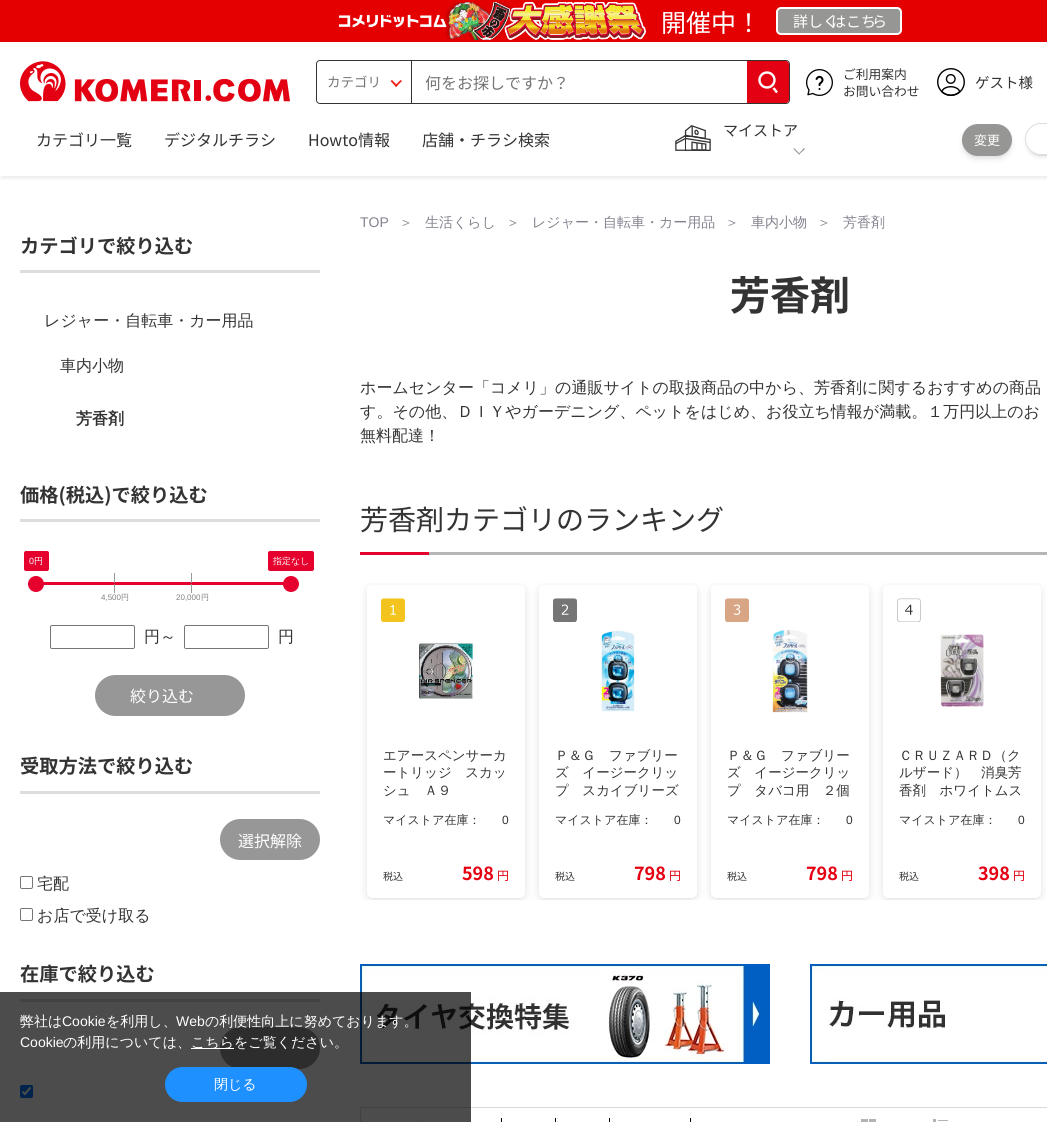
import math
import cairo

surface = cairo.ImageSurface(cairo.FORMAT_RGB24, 1047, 1122)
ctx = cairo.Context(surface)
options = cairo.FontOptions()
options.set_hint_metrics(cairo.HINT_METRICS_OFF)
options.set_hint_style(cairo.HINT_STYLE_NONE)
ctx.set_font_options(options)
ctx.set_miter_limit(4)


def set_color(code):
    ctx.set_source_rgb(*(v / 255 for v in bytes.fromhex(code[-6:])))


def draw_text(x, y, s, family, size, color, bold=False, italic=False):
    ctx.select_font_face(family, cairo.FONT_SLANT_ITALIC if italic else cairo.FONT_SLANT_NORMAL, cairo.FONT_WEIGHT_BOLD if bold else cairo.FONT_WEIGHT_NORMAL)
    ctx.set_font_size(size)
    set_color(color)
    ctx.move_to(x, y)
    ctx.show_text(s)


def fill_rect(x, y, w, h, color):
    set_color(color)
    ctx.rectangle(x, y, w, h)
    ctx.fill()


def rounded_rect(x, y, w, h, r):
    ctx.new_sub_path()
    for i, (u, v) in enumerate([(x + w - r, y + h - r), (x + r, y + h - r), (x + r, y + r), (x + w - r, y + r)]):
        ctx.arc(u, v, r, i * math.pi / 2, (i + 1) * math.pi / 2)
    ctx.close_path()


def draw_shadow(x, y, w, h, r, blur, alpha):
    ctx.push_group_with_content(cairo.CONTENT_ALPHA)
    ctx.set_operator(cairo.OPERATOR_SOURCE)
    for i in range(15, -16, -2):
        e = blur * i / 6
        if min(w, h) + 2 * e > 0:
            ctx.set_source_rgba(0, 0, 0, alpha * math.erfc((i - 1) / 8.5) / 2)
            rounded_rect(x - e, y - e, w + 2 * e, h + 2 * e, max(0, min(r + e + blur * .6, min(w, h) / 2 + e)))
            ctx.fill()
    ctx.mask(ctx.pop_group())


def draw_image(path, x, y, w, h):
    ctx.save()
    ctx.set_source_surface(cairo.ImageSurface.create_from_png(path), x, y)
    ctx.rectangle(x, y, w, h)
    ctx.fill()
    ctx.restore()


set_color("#ffffff")
ctx.paint()
fill_rect(0, 0, 1047, 42, "#e40001")
draw_image("assets/img1.png", 339, 2, 307, 38)
draw_text(661, 32, "開催中！", "Noto Sans JP", 25, "#ffffff")
set_color("#969694")
rounded_rect(777, 8, 124, 26, 4)
ctx.fill_preserve()
set_color("#ffffff")
ctx.stroke()
draw_text(793, 27, "詳しく", "Noto Sans JP", 15, "#ffffff")
draw_text(831, 27, "はこち", "Noto Sans JP", 15, "#ffffff")
draw_text(872, 27, "ら", "Noto Sans JP", 15, "#ffffff")
ctx.save()
ctx.rectangle(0, 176, 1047, 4)
ctx.clip()
set_color("#000000")
draw_shadow(1, 67, 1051, 112, 0, 1.5, 0.07)
ctx.restore()
draw_image("assets/img2.png", 20, 61, 270, 41)
rounded_rect(316.5, 60.5, 473, 43, 3.5)
set_color("#333333")
ctx.set_line_width(1)
ctx.stroke()
set_color("#ffffff")
ctx.new_path()
ctx.move_to(321, 61)
ctx.line_to(412, 61)
ctx.line_to(412, 103)
ctx.line_to(321, 103)
ctx.curve_to(319, 103, 317, 101, 317, 99)
ctx.line_to(317, 65)
ctx.curve_to(317, 63, 319, 61, 321, 61)
ctx.close_path()
ctx.fill()
fill_rect(411, 61, 1, 42, "#333333")
draw_text(327, 87, "カテゴリ", "Noto Sans JP", 13.5, "#757575")
set_color("#f0221a")
ctx.new_path()
ctx.move_to(400.5, 80)
ctx.line_to(402, 81)
ctx.line_to(396, 87)
ctx.line_to(395, 85.5)
ctx.close_path()
ctx.fill()
ctx.new_path()
ctx.move_to(392, 80)
ctx.line_to(397.5, 85.5)
ctx.line_to(396, 87)
ctx.line_to(390.5, 81)
ctx.close_path()
ctx.fill()
draw_text(425, 89, "何をお探しですか？", "Noto Sans JP", 16, "#757575")
set_color("#e30012")
ctx.new_path()
ctx.move_to(747, 61)
ctx.line_to(786, 61)
ctx.curve_to(787.5, 61, 789, 62.5, 789, 64)
ctx.line_to(789, 100)
ctx.curve_to(789, 101.5, 787.5, 103, 786, 103)
ctx.line_to(747, 103)
ctx.close_path()
ctx.fill()
ctx.arc(767, 80, 7.5, 0, 2 * math.pi)
set_color("#ffffff")
ctx.set_line_width(2.4)
ctx.stroke()
ctx.new_path()
ctx.move_to(773.5, 88)
ctx.line_to(777, 92.5)
ctx.stroke()
draw_image("assets/img3.png", 806, 69, 27, 27)
draw_text(843, 79, "ご利用案内", "Noto Sans JP", 12.75, "#333333")
draw_text(843, 96, "お問い合わせ", "Noto Sans JP", 12.75, "#333333")
draw_image("assets/img4.png", 937, 68, 28, 28)
draw_text(975, 88, "ゲスト様", "Noto Sans JP", 14.5, "#333333")
draw_text(36, 146, "カテゴリ一覧", "Noto Sans JP", 16, "#333333")
draw_text(164, 146, "デジタルチラシ", "Noto Sans JP", 16, "#333333")
draw_text(308, 146, "Howto情報", "Noto Sans JP", 16, "#333333")
draw_text(422, 146, "店舗・チラシ検索", "Noto Sans JP", 16, "#333333")
draw_image("assets/img5.png", 675, 125, 36, 26)
draw_text(723, 136, "マイストア", "Noto Sans JP", 15, "#333333")
set_color("#000000")
draw_shadow(963, 127, 48, 30, 15, 2, 0.06)
draw_shadow(963, 129, 48, 30, 15, 3, 0.1)
set_color("#969694")
rounded_rect(962, 124, 50, 32, 16)
ctx.fill()
draw_text(974, 145, "変更", "Noto Sans JP", 13, "#ffffff")
set_color("#969694")
ctx.new_path()
ctx.move_to(805, 149)
ctx.line_to(799, 154.5)
ctx.line_to(798.5, 154)
ctx.line_to(804, 148)
ctx.close_path()
ctx.fill()
ctx.new_path()
ctx.move_to(800, 154)
ctx.line_to(799, 154.5)
ctx.line_to(793.5, 149)
ctx.line_to(794, 148)
ctx.close_path()
ctx.fill()
set_color("#f0f0f0")
ctx.new_path()
ctx.move_to(1028, 148)
ctx.curve_to(1030, 153, 1035, 156, 1041, 156)
ctx.line_to(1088, 156)
ctx.curve_to(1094, 156, 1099, 153, 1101, 148)
ctx.curve_to(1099, 152, 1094, 155, 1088, 155)
ctx.line_to(1041, 155)
ctx.curve_to(1035, 155, 1030, 152, 1028, 148)
ctx.close_path()
ctx.fill()
ctx.save()
ctx.set_fill_rule(cairo.FILL_RULE_EVEN_ODD)
ctx.new_path()
ctx.move_to(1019, 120)
ctx.line_to(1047, 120)
ctx.line_to(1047, 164)
ctx.line_to(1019, 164)
ctx.close_path()
ctx.move_to(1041, 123)
ctx.line_to(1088, 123)
ctx.curve_to(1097, 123, 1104, 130, 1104, 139)
ctx.curve_to(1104, 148, 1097, 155, 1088, 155)
ctx.line_to(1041, 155)
ctx.curve_to(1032, 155, 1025, 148, 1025, 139)
ctx.curve_to(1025, 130, 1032, 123, 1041, 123)
ctx.close_path()
ctx.clip()
set_color("#000000")
draw_shadow(1026, 127, 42, 30, 15, 2, 0.1)
ctx.restore()
rounded_rect(1025.5, 123.5, 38, 31, 15.5)
set_color("#dddddd")
ctx.set_line_width(1)
ctx.stroke()
fill_rect(20, 270, 300, 3, "#dddddd")
draw_text(20, 253, "カテゴリで絞り込む", "Noto Sans JP", 19.25, "#333333", bold=True)
draw_text(44, 326, "レジャー・自転車・カー用品", "WenQuanYi Zen Hei Medium", 16, "#333333")
draw_text(60, 371, "車内小物", "WenQuanYi Zen Hei Medium", 16, "#333333")
draw_text(76, 424, "芳香剤", "WenQuanYi Zen Hei", 16, "#333333", bold=True)
fill_rect(20, 519, 300, 3, "#dddddd")
draw_text(20, 502, "価格(税込)で絞り込む", "Noto Sans JP", 19.25, "#333333", bold=True)
ctx.rectangle(33.5, 582.5, 256, 2)
set_color("#e5002d")
ctx.stroke()
fill_rect(114, 573, 1, 20, "#999999")
fill_rect(191, 573, 1, 20, "#999999")
fill_rect(43, 583, 246, 1, "#e5002d")
ctx.arc(36, 584, 7, 0, 2 * math.pi)
ctx.fill_preserve()
ctx.set_line_width(2)
ctx.stroke()
rounded_rect(23.5, 550.5, 26, 21, 2.5)
ctx.fill_preserve()
set_color("#ffffff")
ctx.set_line_width(1)
ctx.stroke()
draw_text(29, 564, "0", "Liberation Sans", 9, "#ffffff")
draw_text(34, 564, "円", "WenQuanYi Zen Hei Medium", 9, "#ffffff")
set_color("#e5002d")
ctx.new_path()
ctx.arc(291, 584, 7, 0, 2 * math.pi)
ctx.fill_preserve()
ctx.set_line_width(2)
ctx.stroke()
rounded_rect(267.5, 550.5, 47, 21, 2.5)
ctx.fill_preserve()
set_color("#ffffff")
ctx.set_line_width(1)
ctx.stroke()
draw_text(273, 564, "指定なし", "WenQuanYi Zen Hei Medium", 9, "#ffffff")
draw_text(101, 600, "4,500", "Liberation Sans", 8, "#808080")
draw_text(121, 600, "円", "WenQuanYi Zen Hei Medium", 8, "#808080")
draw_text(176, 600, "20,000", "Liberation Sans", 8, "#808080")
draw_text(201, 600, "円", "WenQuanYi Zen Hei Medium", 8, "#808080")
rounded_rect(50.5, 625.5, 84, 23, 1.5)
set_color("#767676")
ctx.stroke()
draw_text(144, 642, "円～", "WenQuanYi Zen Hei Medium", 16, "#333333")
rounded_rect(184.5, 625.5, 84, 23, 1.5)
set_color("#767676")
ctx.stroke()
draw_text(278, 642, "円", "WenQuanYi Zen Hei Medium", 16, "#333333")
set_color("#979797")
rounded_rect(95, 675, 150, 41, 20.5)
ctx.fill()
draw_text(130, 702, "絞り込む", "Noto Sans JP", 16, "#ffffff")
fill_rect(20, 791, 300, 3, "#dddddd")
draw_text(20, 773, "受取方法で絞り込む", "Noto Sans JP", 19.25, "#333333", bold=True)
set_color("#979797")
rounded_rect(220, 819, 100, 41, 20.5)
ctx.fill()
draw_text(238, 847, "選択解除", "Noto Sans JP", 16, "#ffffff")
rounded_rect(20.5, 876.5, 12, 12, 1.5)
set_color("#767676")
ctx.stroke()
draw_text(37, 889, "宅配", "WenQuanYi Zen Hei Medium", 16, "#333333")
rounded_rect(20.5, 908.5, 12, 12, 1.5)
set_color("#767676")
ctx.stroke()
draw_text(37, 921, "お店で受け取る", "WenQuanYi Zen Hei Medium", 16, "#333333")
fill_rect(20, 999, 300, 3, "#dddddd")
draw_text(20, 981, "在庫で絞り込む", "Noto Sans JP", 19.25, "#333333", bold=True)
set_color("#979797")
rounded_rect(220, 1027, 100, 42, 21)
ctx.fill()
set_color("#0075ff")
rounded_rect(20, 1085, 13, 13, 2)
ctx.fill()
ctx.new_path()
ctx.move_to(22.5, 1091.5)
ctx.line_to(25, 1094)
ctx.line_to(30.5, 1087.5)
set_color("#ffffff")
ctx.set_line_width(2.1)
ctx.stroke()
draw_text(360, 227, "TOP", "Liberation Sans", 14, "#83838f")
draw_text(399, 227, "＞", "WenQuanYi Zen Hei Medium", 14, "#83838f")
draw_text(425, 227, "生活くらし", "WenQuanYi Zen Hei Medium", 14, "#83838f")
draw_text(506, 227, "＞", "WenQuanYi Zen Hei Medium", 14, "#83838f")
draw_text(532, 227, "レジャー・自転車・カー用品", "WenQuanYi Zen Hei Medium", 14, "#83838f")
draw_text(725, 227, "＞", "WenQuanYi Zen Hei Medium", 14, "#83838f")
draw_text(751, 227, "車内小物", "WenQuanYi Zen Hei Medium", 14, "#83838f")
draw_text(817, 227, "＞", "WenQuanYi Zen Hei Medium", 14, "#83838f")
draw_text(843, 227, "芳香剤", "WenQuanYi Zen Hei Medium", 14, "#83838f")
draw_text(730, 310, "芳香剤", "Noto Sans JP", 40, "#333333", bold=True)
draw_text(360, 393, "ホームセンター「コメリ」の通販サイトの取扱商品の中から、芳香剤に関するおすすめの商品", "WenQuanYi Zen Hei Medium", 16, "#333333")
draw_text(360, 417, "す。その他、ＤＩＹやガーデニング、ペットをはじめ、お役立ち情報が満載。１万円以上のお", "WenQuanYi Zen Hei Medium", 16, "#333333")
draw_text(360, 441, "無料配達！", "WenQuanYi Zen Hei Medium", 16, "#333333")
fill_rect(429, 552, 618, 3, "#b6b6b6")
draw_text(360, 530, "芳香剤カテゴリのランキング", "Noto Sans JP", 28, "#333333")
fill_rect(360, 552, 69, 3, "#e5002d")
ctx.save()
ctx.rectangle(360, 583, 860, 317)
ctx.clip()
ctx.set_fill_rule(cairo.FILL_RULE_EVEN_ODD)
ctx.new_path()
ctx.move_to(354, 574)
ctx.line_to(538, 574)
ctx.line_to(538, 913)
ctx.line_to(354, 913)
ctx.close_path()
ctx.move_to(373, 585)
ctx.line_to(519, 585)
ctx.curve_to(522.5, 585, 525, 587.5, 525, 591)
ctx.line_to(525, 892)
ctx.curve_to(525, 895.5, 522.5, 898, 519, 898)
ctx.line_to(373, 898)
ctx.curve_to(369.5, 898, 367, 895.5, 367, 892)
ctx.line_to(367, 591)
ctx.curve_to(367, 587.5, 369.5, 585, 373, 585)
ctx.close_path()
ctx.clip()
set_color("#636363")
draw_shadow(367, 587, 158, 313, 6, 4, 0.2)
ctx.restore()
draw_image("assets/img6.png", 381, 598, 24, 24)
draw_image("assets/img7.png", 418, 642, 59, 57)
draw_text(383, 760, "エアースペンサーカ", "WenQuanYi Zen Hei Medium", 13.5, "#333333")
draw_text(383, 777, "ートリッジ　スカッ", "WenQuanYi Zen Hei Medium", 13.5, "#333333")
draw_text(383, 795, "シュ　Ａ９", "WenQuanYi Zen Hei Medium", 13.5, "#333333")
draw_text(383, 824, "マイストア在庫：", "WenQuanYi Zen Hei Medium", 12, "#333333")
draw_text(502, 824, "0", "Liberation Sans", 12, "#333333")
draw_text(383, 880, "税込", "Noto Sans JP", 10, "#333333")
draw_text(462, 880, "598", "Noto Sans JP", 18, "#e50012", bold=True)
draw_text(497, 880, "円", "Noto Sans JP", 12, "#e50012")
ctx.save()
ctx.rectangle(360, 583, 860, 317)
ctx.clip()
ctx.set_fill_rule(cairo.FILL_RULE_EVEN_ODD)
ctx.new_path()
ctx.move_to(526, 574)
ctx.line_to(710, 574)
ctx.line_to(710, 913)
ctx.line_to(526, 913)
ctx.close_path()
ctx.move_to(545, 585)
ctx.line_to(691, 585)
ctx.curve_to(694.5, 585, 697, 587.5, 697, 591)
ctx.line_to(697, 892)
ctx.curve_to(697, 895.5, 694.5, 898, 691, 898)
ctx.line_to(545, 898)
ctx.curve_to(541.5, 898, 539, 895.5, 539, 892)
ctx.line_to(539, 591)
ctx.curve_to(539, 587.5, 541.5, 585, 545, 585)
ctx.close_path()
ctx.clip()
set_color("#636363")
draw_shadow(539, 587, 158, 313, 6, 4, 0.2)
ctx.restore()
draw_image("assets/img8.png", 553, 598, 24, 24)
draw_image("assets/img9.png", 601, 630, 34, 82)
draw_text(555, 760, "Ｐ＆Ｇ　ファブリー", "WenQuanYi Zen Hei Medium", 13.5, "#333333")
draw_text(555, 777, "ズ　イージークリッ", "WenQuanYi Zen Hei Medium", 13.5, "#333333")
draw_text(555, 795, "プ　スカイブリーズ", "WenQuanYi Zen Hei Medium", 13.5, "#333333")
draw_text(555, 824, "マイストア在庫：", "WenQuanYi Zen Hei Medium", 12, "#333333")
draw_text(674, 824, "0", "Liberation Sans", 12, "#333333")
draw_text(555, 880, "税込", "Noto Sans JP", 10, "#333333")
draw_text(634, 880, "798", "Noto Sans JP", 18, "#e50012", bold=True)
draw_text(669, 880, "円", "Noto Sans JP", 12, "#e50012")
ctx.save()
ctx.rectangle(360, 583, 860, 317)
ctx.clip()
ctx.set_fill_rule(cairo.FILL_RULE_EVEN_ODD)
ctx.new_path()
ctx.move_to(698, 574)
ctx.line_to(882, 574)
ctx.line_to(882, 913)
ctx.line_to(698, 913)
ctx.close_path()
ctx.move_to(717, 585)
ctx.line_to(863, 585)
ctx.curve_to(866.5, 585, 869, 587.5, 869, 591)
ctx.line_to(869, 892)
ctx.curve_to(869, 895.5, 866.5, 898, 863, 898)
ctx.line_to(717, 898)
ctx.curve_to(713.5, 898, 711, 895.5, 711, 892)
ctx.line_to(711, 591)
ctx.curve_to(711, 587.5, 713.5, 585, 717, 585)
ctx.close_path()
ctx.clip()
set_color("#636363")
draw_shadow(711, 587, 158, 313, 6, 4, 0.2)
ctx.restore()
draw_image("assets/img10.png", 725, 598, 24, 24)
draw_image("assets/img11.png", 772, 630, 36, 83)
draw_text(727, 760, "Ｐ＆Ｇ　ファブリー", "WenQuanYi Zen Hei Medium", 13.5, "#333333")
draw_text(727, 777, "ズ　イージークリッ", "WenQuanYi Zen Hei Medium", 13.5, "#333333")
draw_text(727, 795, "プ　タバコ用　２個", "WenQuanYi Zen Hei Medium", 13.5, "#333333")
draw_text(727, 824, "マイストア在庫：", "WenQuanYi Zen Hei Medium", 12, "#333333")
draw_text(846, 824, "0", "Liberation Sans", 12, "#333333")
draw_text(727, 880, "税込", "Noto Sans JP", 10, "#333333")
draw_text(806, 880, "798", "Noto Sans JP", 18, "#e50012", bold=True)
draw_text(841, 880, "円", "Noto Sans JP", 12, "#e50012")
ctx.save()
ctx.rectangle(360, 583, 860, 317)
ctx.clip()
ctx.set_fill_rule(cairo.FILL_RULE_EVEN_ODD)
ctx.new_path()
ctx.move_to(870, 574)
ctx.line_to(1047, 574)
ctx.line_to(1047, 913)
ctx.line_to(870, 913)
ctx.close_path()
ctx.move_to(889, 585)
ctx.line_to(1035, 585)
ctx.curve_to(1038.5, 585, 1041, 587.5, 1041, 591)
ctx.line_to(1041, 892)
ctx.curve_to(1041, 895.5, 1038.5, 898, 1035, 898)
ctx.line_to(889, 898)
ctx.curve_to(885.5, 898, 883, 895.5, 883, 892)
ctx.line_to(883, 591)
ctx.curve_to(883, 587.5, 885.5, 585, 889, 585)
ctx.close_path()
ctx.clip()
set_color("#636363")
draw_shadow(883, 587, 158, 313, 6, 4, 0.2)
ctx.restore()
draw_image("assets/img12.png", 897, 598, 24, 24)
draw_image("assets/img13.png", 940, 634, 44, 73)
draw_text(899, 760, "ＣＲＵＺＡＲＤ（ク", "WenQuanYi Zen Hei Medium", 13.5, "#333333")
draw_text(899, 777, "ルザード）　消臭芳", "WenQuanYi Zen Hei Medium", 13.5, "#333333")
draw_text(899, 795, "香剤　ホワイトムス", "WenQuanYi Zen Hei Medium", 13.5, "#333333")
draw_text(899, 824, "マイストア在庫：", "WenQuanYi Zen Hei Medium", 12, "#333333")
draw_text(1018, 824, "0", "Liberation Sans", 12, "#333333")
draw_text(899, 880, "税込", "Noto Sans JP", 10, "#333333")
draw_text(978, 880, "398", "Noto Sans JP", 18, "#e50012", bold=True)
draw_text(1013, 880, "円", "Noto Sans JP", 12, "#e50012")
draw_image("assets/img14.png", 360, 964, 410, 100)
draw_image("assets/img15.png", 810, 964, 237, 100)
ctx.rectangle(360.5, 1107.5, 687, 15)
set_color("#d9d9d9")
ctx.set_line_width(1)
ctx.stroke()
ctx.new_path()
ctx.move_to(416.5, 1120)
ctx.line_to(416.5, 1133)
ctx.set_dash([1, 1])
ctx.stroke()
fill_rect(501, 1118, 1, 4, "#000000")
fill_rect(555, 1118, 1, 4, "#000000")
fill_rect(609, 1118, 1, 4, "#000000")
fill_rect(690, 1118, 1, 4, "#000000")
ctx.new_path()
ctx.move_to(857.5, 1121)
ctx.line_to(857.5, 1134)
set_color("#d9d9d9")
ctx.stroke()
draw_image("assets/img16.png", 861, 1119, 15, 3)
draw_image("assets/img17.png", 933, 1119, 15, 3)
ctx.set_source_rgba(0, 0, 0, 0.7)
ctx.rectangle(0, 992, 471, 130)
ctx.fill()
draw_text(20, 1026, "弊社は", "WenQuanYi Zen Hei Medium", 14, "#ffffff")
draw_text(62, 1026, "Cookie", "Liberation Sans", 14, "#ffffff")
draw_text(106, 1026, "を利用し、", "WenQuanYi Zen Hei Medium", 14, "#ffffff")
draw_text(176, 1026, "Web", "Liberation Sans", 14, "#ffffff")
draw_text(205, 1026, "の利便性向上に努めております。", "WenQuanYi Zen Hei Medium", 14, "#ffffff")
draw_text(20, 1047, "Cookie", "Liberation Sans", 14, "#ffffff")
draw_text(63, 1047, "の利用については、", "WenQuanYi Zen Hei Medium", 14, "#ffffff")
fill_rect(191, 1048, 43, 1, "#ffffff")
draw_text(191, 1047, "こちらをご覧ください。", "WenQuanYi Zen Hei Medium", 14, "#ffffff")
set_color("#1e90ff")
rounded_rect(165, 1067, 142, 35, 17.5)
ctx.fill()
draw_text(214, 1089, "閉じる", "WenQuanYi Zen Hei Medium", 14, "#ffffff")
surface.write_to_png("output.png")
